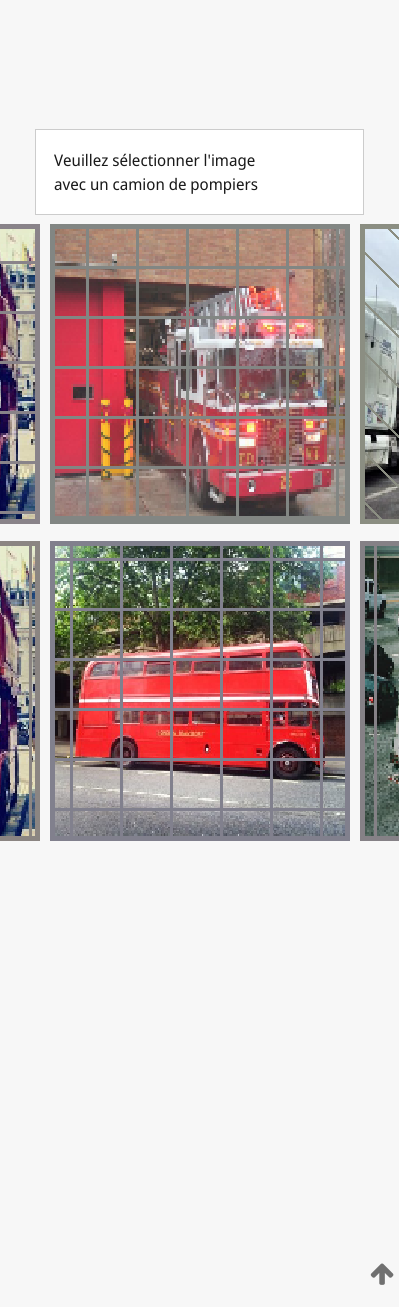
import math
import cairo

surface = cairo.ImageSurface(cairo.FORMAT_RGB24, 399, 1307)
ctx = cairo.Context(surface)
options = cairo.FontOptions()
options.set_hint_metrics(cairo.HINT_METRICS_OFF)
options.set_hint_style(cairo.HINT_STYLE_NONE)
ctx.set_font_options(options)
ctx.set_miter_limit(4)


def set_color(code):
    ctx.set_source_rgb(*(v / 255 for v in bytes.fromhex(code[-6:])))


def draw_text(x, y, s, family, size, color, bold=False, italic=False):
    ctx.select_font_face(family, cairo.FONT_SLANT_ITALIC if italic else cairo.FONT_SLANT_NORMAL, cairo.FONT_WEIGHT_BOLD if bold else cairo.FONT_WEIGHT_NORMAL)
    ctx.set_font_size(size)
    set_color(color)
    ctx.move_to(x, y)
    ctx.show_text(s)


def draw_image(path, x, y, w, h):
    ctx.save()
    ctx.set_source_surface(cairo.ImageSurface.create_from_png(path), x, y)
    ctx.rectangle(x, y, w, h)
    ctx.fill()
    ctx.restore()


set_color("#f7f7f7")
ctx.paint()
set_color("#ffffff")
ctx.rectangle(35.5, 129.5, 328, 85)
ctx.fill_preserve()
set_color("#cccccc")
ctx.set_line_width(1)
ctx.stroke()
draw_text(54, 166, "Veuillez sélectionner l'image", "Noto Sans Display", 16, "#1a1a1a")
draw_text(54, 190, "avec un camion de pompiers", "Noto Sans Display", 16, "#1a1a1a")
draw_image("assets/img1.png", 0, 224, 40, 300)
draw_image("assets/img2.png", 50, 224, 300, 300)
draw_image("assets/img3.png", 360, 224, 39, 300)
draw_image("assets/img4.png", 0, 541, 40, 300)
draw_image("assets/img5.png", 50, 541, 300, 300)
draw_image("assets/img6.png", 360, 541, 39, 300)
draw_image("assets/img7.png", 370, 1263, 24, 22)
surface.write_to_png("output.png")
